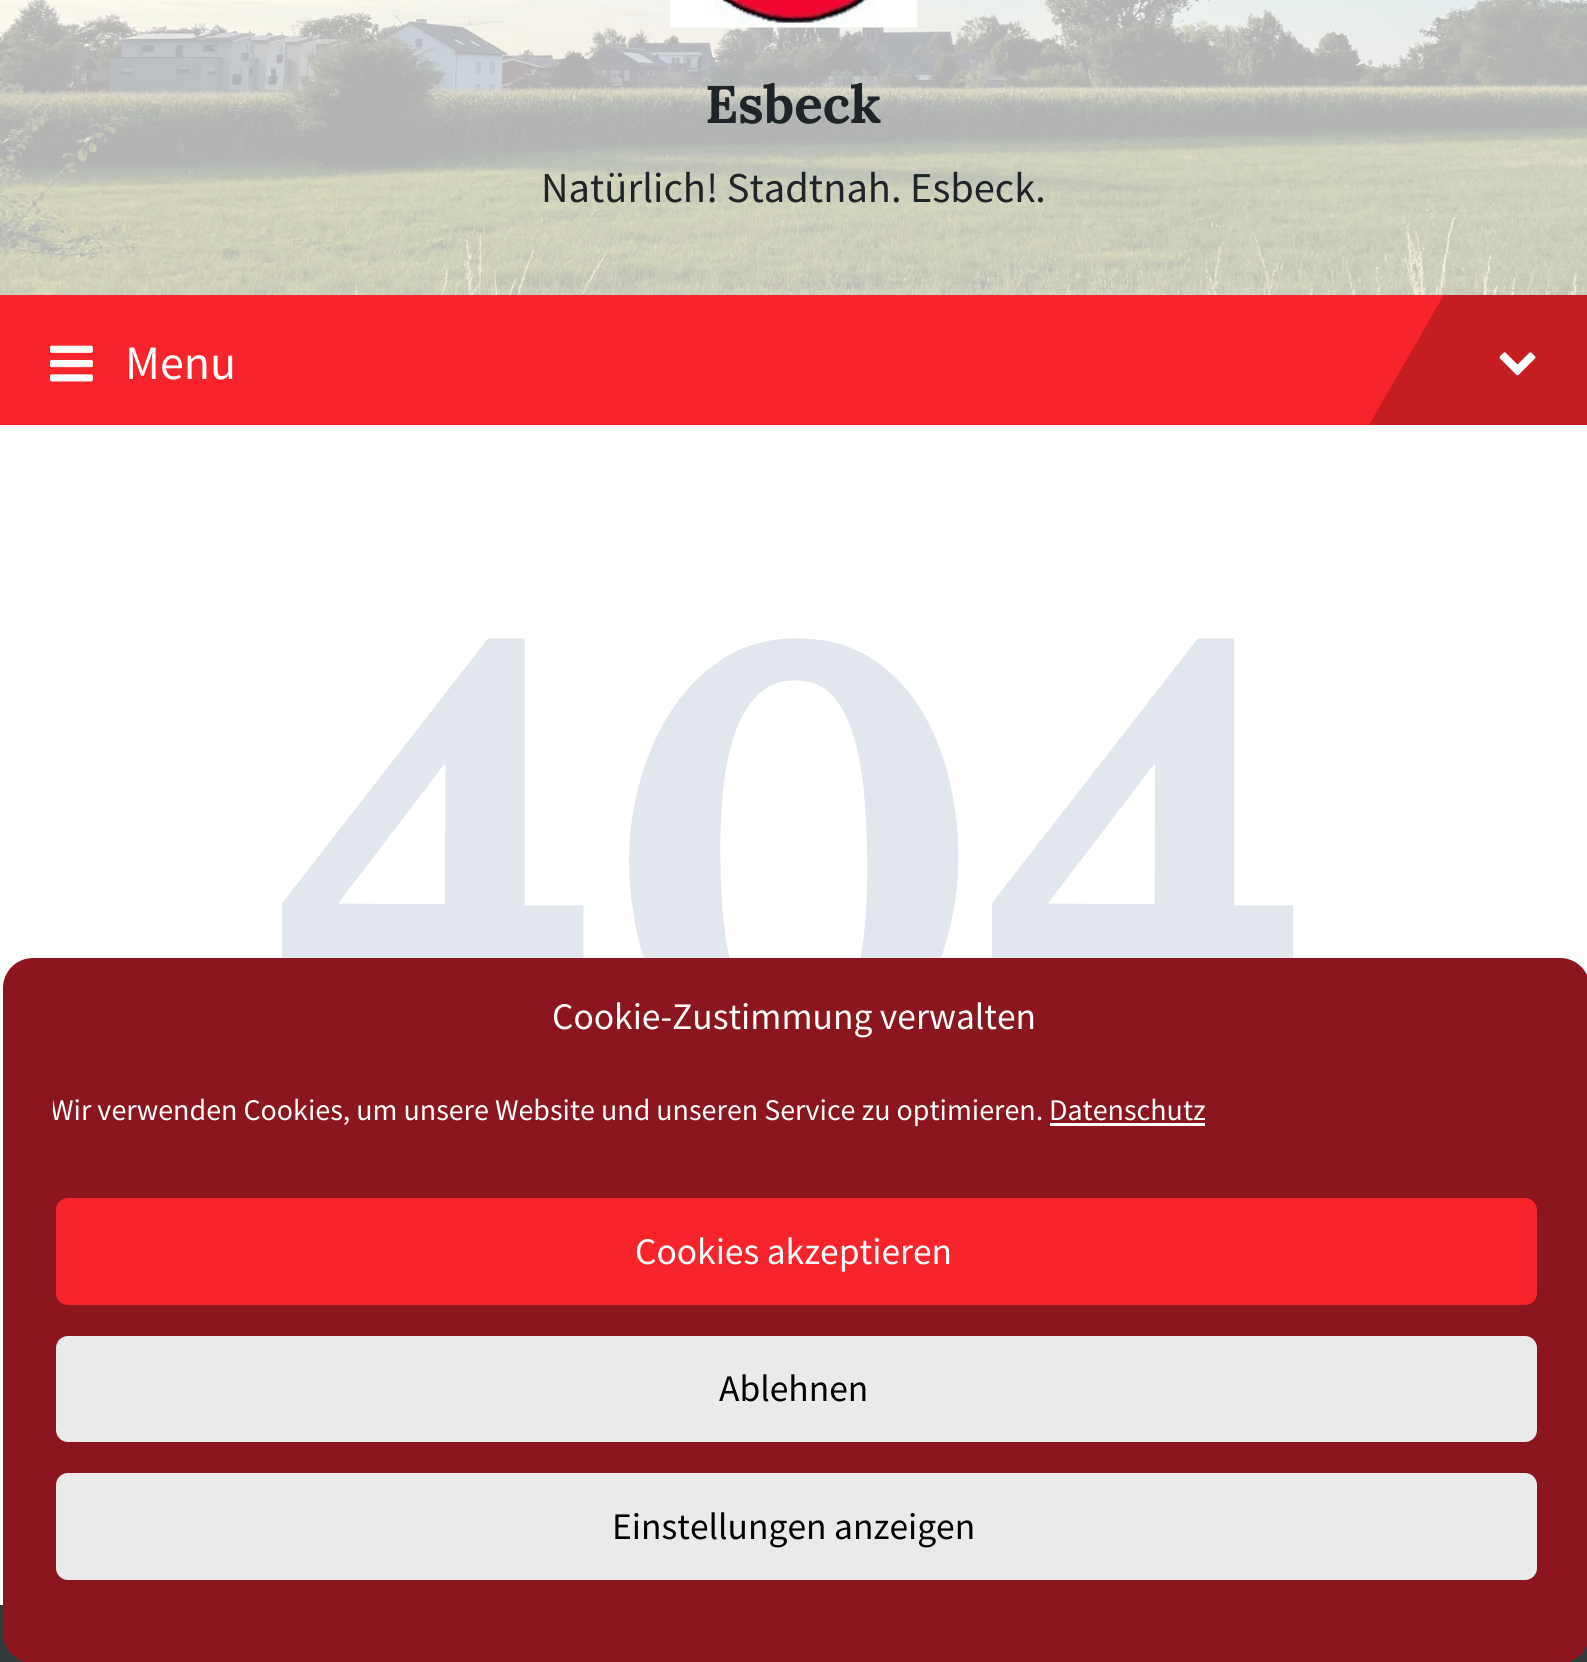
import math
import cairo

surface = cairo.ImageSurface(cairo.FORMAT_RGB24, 1587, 1662)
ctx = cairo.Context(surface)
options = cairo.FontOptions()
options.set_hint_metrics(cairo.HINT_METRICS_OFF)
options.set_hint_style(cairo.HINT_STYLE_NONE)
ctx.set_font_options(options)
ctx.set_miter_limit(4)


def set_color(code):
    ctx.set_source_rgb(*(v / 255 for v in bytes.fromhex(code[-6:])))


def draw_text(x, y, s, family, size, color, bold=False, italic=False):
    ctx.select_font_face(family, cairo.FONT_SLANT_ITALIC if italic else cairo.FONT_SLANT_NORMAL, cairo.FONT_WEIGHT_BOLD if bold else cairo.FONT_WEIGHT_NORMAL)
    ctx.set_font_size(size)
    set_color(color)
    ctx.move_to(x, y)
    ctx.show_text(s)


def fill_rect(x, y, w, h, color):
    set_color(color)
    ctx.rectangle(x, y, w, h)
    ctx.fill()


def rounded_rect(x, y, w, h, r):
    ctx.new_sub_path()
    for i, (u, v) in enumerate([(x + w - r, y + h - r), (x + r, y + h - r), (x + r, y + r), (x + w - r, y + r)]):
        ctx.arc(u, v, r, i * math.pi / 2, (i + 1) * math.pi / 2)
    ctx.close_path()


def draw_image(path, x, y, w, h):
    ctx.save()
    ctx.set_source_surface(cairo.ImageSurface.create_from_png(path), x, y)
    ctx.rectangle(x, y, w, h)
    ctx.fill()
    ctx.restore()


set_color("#ffffff")
ctx.paint()
draw_image("assets/img1.png", 0, 0, 1587, 295)
draw_image("assets/img2.png", 670, 0, 248, 28)
draw_text(705, 123, "Esbeck", "Lora", 53, "#1e2427", bold=True)
draw_text(541, 202, "Natürlich! Stadtnah. Esbeck.", "Source Sans Pro", 42.5, "#1e2427")
fill_rect(0, 295, 1444, 130, "#f7242b")
draw_image("assets/img3.png", 50, 345, 43, 37)
draw_text(125, 379, "Menu", "Source Sans Pro", 48, "#ffffff")
ctx.save()
ctx.rectangle(0, 295, 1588, 130)
ctx.clip()
set_color("#c61d22")
ctx.new_path()
ctx.move_to(1491, 213)
ctx.line_to(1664, 313)
ctx.line_to(1534, 539)
ctx.line_to(1361, 439)
ctx.close_path()
ctx.fill()
ctx.restore()
draw_image("assets/img4.png", 1499, 352, 37, 24)
draw_text(275, 1068, "404", "Lora", 600, "#e1e7ec", bold=True)
draw_image("assets/img5.png", 0, 1605, 1587, 57)
set_color("#8c1620")
rounded_rect(3, 958, 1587, 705, 30)
ctx.fill()
draw_text(552, 1029, "Cookie-Zustimmung verwalten", "Source Sans Pro", 37.5, "#ffffff")
ctx.save()
ctx.rectangle(53, 1088, 1487, 57)
ctx.clip()
draw_text(50, 1120, "Wir verwenden Cookies, um unsere Website und unseren Service zu optimieren.", "Source Sans Pro", 30, "#ffffff")
ctx.restore()
draw_text(1049, 1120, "Datenschutz", "Source Sans Pro", 30, "#ffffff")
fill_rect(1050, 1123, 155, 3, "#ffffff")
set_color("#f7242b")
rounded_rect(54.5, 1196.5, 1484, 110, 13.5)
ctx.fill_preserve()
set_color("#8c1620")
ctx.set_line_width(3)
ctx.stroke()
draw_text(635, 1264, "Cookies akzeptieren", "Source Sans Pro", 37.5, "#ffffff")
set_color("#ebeaea")
rounded_rect(54.5, 1334.5, 1484, 109, 13.5)
ctx.fill_preserve()
set_color("#8c1620")
ctx.stroke()
draw_text(719, 1401, "Ablehnen", "Source Sans Pro", 37.5, "#000000")
set_color("#ebeaea")
rounded_rect(54.5, 1471.5, 1484, 110, 13.5)
ctx.fill_preserve()
set_color("#8c1620")
ctx.stroke()
draw_text(612, 1539, "Einstellungen anzeigen", "Source Sans Pro", 37.5, "#000000")
surface.write_to_png("output.png")
